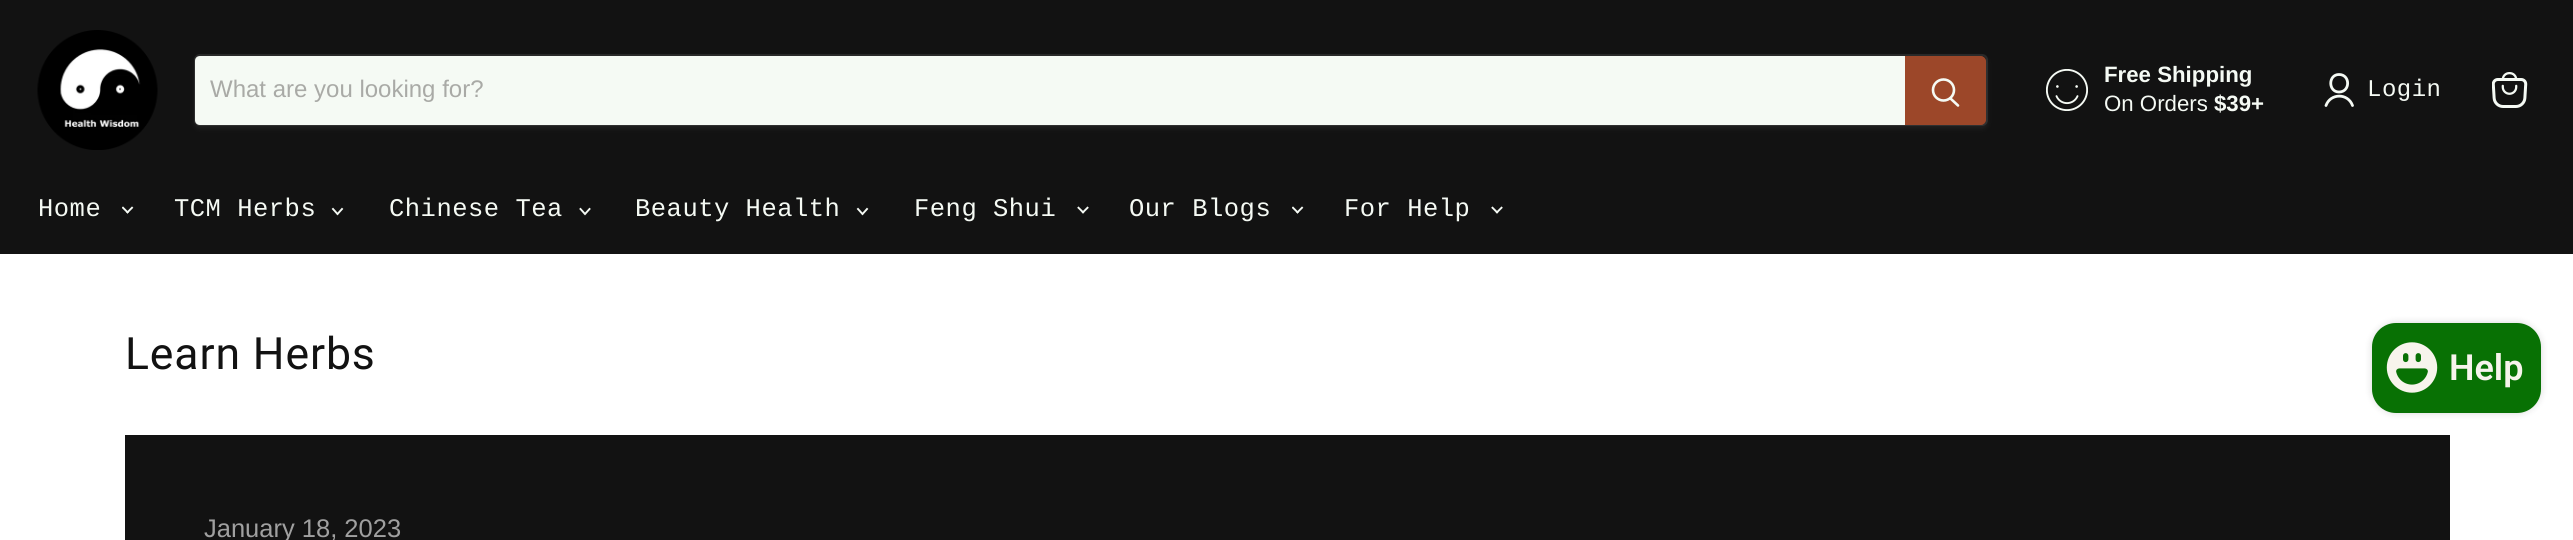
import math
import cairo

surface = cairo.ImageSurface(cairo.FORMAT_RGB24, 2573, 540)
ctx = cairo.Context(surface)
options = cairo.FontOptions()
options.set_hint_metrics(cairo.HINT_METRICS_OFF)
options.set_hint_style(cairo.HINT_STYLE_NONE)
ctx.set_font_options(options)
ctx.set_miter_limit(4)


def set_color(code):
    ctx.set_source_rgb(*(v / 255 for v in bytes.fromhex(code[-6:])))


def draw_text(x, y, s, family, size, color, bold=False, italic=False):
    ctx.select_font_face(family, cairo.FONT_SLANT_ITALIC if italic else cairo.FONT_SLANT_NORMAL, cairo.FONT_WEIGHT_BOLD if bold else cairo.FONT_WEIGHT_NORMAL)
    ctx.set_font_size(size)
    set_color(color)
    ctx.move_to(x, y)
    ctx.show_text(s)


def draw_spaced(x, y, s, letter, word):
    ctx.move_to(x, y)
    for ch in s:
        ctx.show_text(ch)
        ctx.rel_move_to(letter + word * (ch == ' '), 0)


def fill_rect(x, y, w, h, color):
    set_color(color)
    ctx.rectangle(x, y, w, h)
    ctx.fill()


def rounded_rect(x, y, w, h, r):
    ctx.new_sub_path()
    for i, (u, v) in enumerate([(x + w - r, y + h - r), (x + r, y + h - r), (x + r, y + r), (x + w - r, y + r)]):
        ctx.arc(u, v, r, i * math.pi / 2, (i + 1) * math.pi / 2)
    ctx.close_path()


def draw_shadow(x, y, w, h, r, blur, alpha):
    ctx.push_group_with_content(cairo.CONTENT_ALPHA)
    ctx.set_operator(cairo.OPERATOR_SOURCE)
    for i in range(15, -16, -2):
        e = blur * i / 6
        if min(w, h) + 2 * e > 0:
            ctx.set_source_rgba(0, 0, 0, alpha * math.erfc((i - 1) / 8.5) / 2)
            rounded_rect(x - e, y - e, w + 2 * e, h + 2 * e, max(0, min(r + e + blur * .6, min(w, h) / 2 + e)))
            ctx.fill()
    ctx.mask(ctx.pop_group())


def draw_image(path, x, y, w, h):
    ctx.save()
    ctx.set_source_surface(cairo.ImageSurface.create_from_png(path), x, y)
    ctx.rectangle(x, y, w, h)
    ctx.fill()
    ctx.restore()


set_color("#ffffff")
ctx.paint()
fill_rect(0, 0, 2573, 254, "#121212")
draw_image("assets/img1.png", 37, 30, 121, 120)
set_color("#808080")
draw_shadow(194, 57, 1794, 72, 6, 2, 0.11)
rounded_rect(195, 55, 1792, 70, 5)
ctx.set_source_rgba(0.502, 0.502, 0.502, 0.2)
ctx.stroke()
set_color("#f5faf4")
ctx.new_path()
ctx.move_to(200, 56)
ctx.line_to(1905, 56)
ctx.line_to(1905, 125)
ctx.line_to(200, 125)
ctx.curve_to(197, 125, 195, 123, 195, 120)
ctx.line_to(195, 61)
ctx.curve_to(195, 58, 197, 56, 200, 56)
ctx.close_path()
ctx.fill()
draw_text(210, 97, "What are you looking for?", "Liberation Sans", 24, "#a9aaa6")
set_color("#9c4729")
ctx.new_path()
ctx.move_to(1906, 57)
ctx.line_to(1981, 57)
ctx.curve_to(1983, 57, 1985, 59, 1985, 61)
ctx.line_to(1985, 120)
ctx.curve_to(1985, 122, 1983, 124, 1981, 124)
ctx.line_to(1906, 124)
ctx.close_path()
ctx.fill_preserve()
ctx.stroke()
ctx.new_path()
ctx.move_to(1958, 105.5)
ctx.line_to(1950.5, 98.5)
set_color("#f5faf4")
ctx.set_line_width(2.6)
ctx.set_line_cap(cairo.LINE_CAP_ROUND)
ctx.stroke()
ctx.arc(1943.5, 90, 10.5, 0, 2 * math.pi)
ctx.set_line_cap(cairo.LINE_CAP_BUTT)
ctx.stroke()
draw_image("assets/img2.png", 2046, 69, 42, 42)
draw_text(2104, 82, "Free Shipping", "Liberation Sans", 22.25, "#f5faf4", bold=True)
draw_text(2104, 111, "On Orders", "Liberation Sans", 22.25, "#f5faf4")
draw_text(2214, 111, "$39+", "Liberation Sans", 22.25, "#f5faf4", bold=True)
ctx.new_path()
ctx.move_to(2339, 92)
ctx.curve_to(2350.5, 92, 2350.5, 74.5, 2339, 74.5)
ctx.curve_to(2328, 74.5, 2328, 92, 2339, 92)
ctx.close_path()
ctx.move_to(2352.5, 105.5)
ctx.curve_to(2348, 93, 2330.5, 93, 2326, 105.5)
ctx.set_line_width(2.8)
ctx.set_line_cap(cairo.LINE_CAP_ROUND)
ctx.set_line_join(cairo.LINE_JOIN_ROUND)
ctx.stroke()
ctx.select_font_face("Liberation Mono")
ctx.set_font_size(24)
draw_spaced(2367, 96, "Login", 0.5, 0)
draw_image("assets/img3.png", 2492, 72, 36, 36)
ctx.set_font_size(25.5)
draw_spaced(38, 216, "Home", 0.5, 0)
draw_image("assets/img4.png", 122, 206, 12, 8)
draw_spaced(174, 216, "TCM Herbs", 0.5, 0)
ctx.new_path()
ctx.move_to(337.5, 214)
ctx.line_to(342, 209)
ctx.move_to(337.5, 214)
ctx.line_to(333, 209)
ctx.set_line_width(1.9)
ctx.set_line_cap(cairo.LINE_CAP_SQUARE)
ctx.set_line_join(cairo.LINE_JOIN_MITER)
ctx.stroke()
draw_spaced(389, 216, "Chinese Tea", 0.5, 0)
ctx.new_path()
ctx.move_to(585, 214)
ctx.line_to(589.5, 209)
ctx.move_to(585, 214)
ctx.line_to(580.5, 209)
ctx.stroke()
draw_spaced(635, 216, "Beauty Health", 0.5, 0)
ctx.new_path()
ctx.move_to(862.5, 214)
ctx.line_to(867, 209)
ctx.move_to(862.5, 214)
ctx.line_to(858, 209)
ctx.stroke()
draw_spaced(914, 216, "Feng Shui", 0.5, 0)
draw_image("assets/img5.png", 1077, 206, 12, 8)
draw_spaced(1129, 216, "Our Blogs", 0.5, 0)
draw_image("assets/img4.png", 1292, 206, 12, 8)
draw_spaced(1344, 216, "For Help", 0.5, 0)
draw_image("assets/img5.png", 1491, 206, 12, 8)
ctx.select_font_face("Roboto")
ctx.set_font_size(44.5)
set_color("#121212")
draw_spaced(125, 369, "Learn Herbs", 0.9, 0)
fill_rect(125, 435, 2325, 105, "#121212")
draw_text(204, 537, "January 18, 2023", "Liberation Sans", 25.5, "#a0a0a0")
set_color("#000000")
draw_shadow(2372, 323, 169, 90, 24, 4, 0.15)
set_color("#087104")
rounded_rect(2372, 323, 169, 90, 24)
ctx.fill()
draw_image("assets/img6.png", 2386, 342, 52, 51)
draw_text(2449, 380, "Help", "Roboto SemiBold", 36, "#f7f4ec")
surface.write_to_png("output.png")
